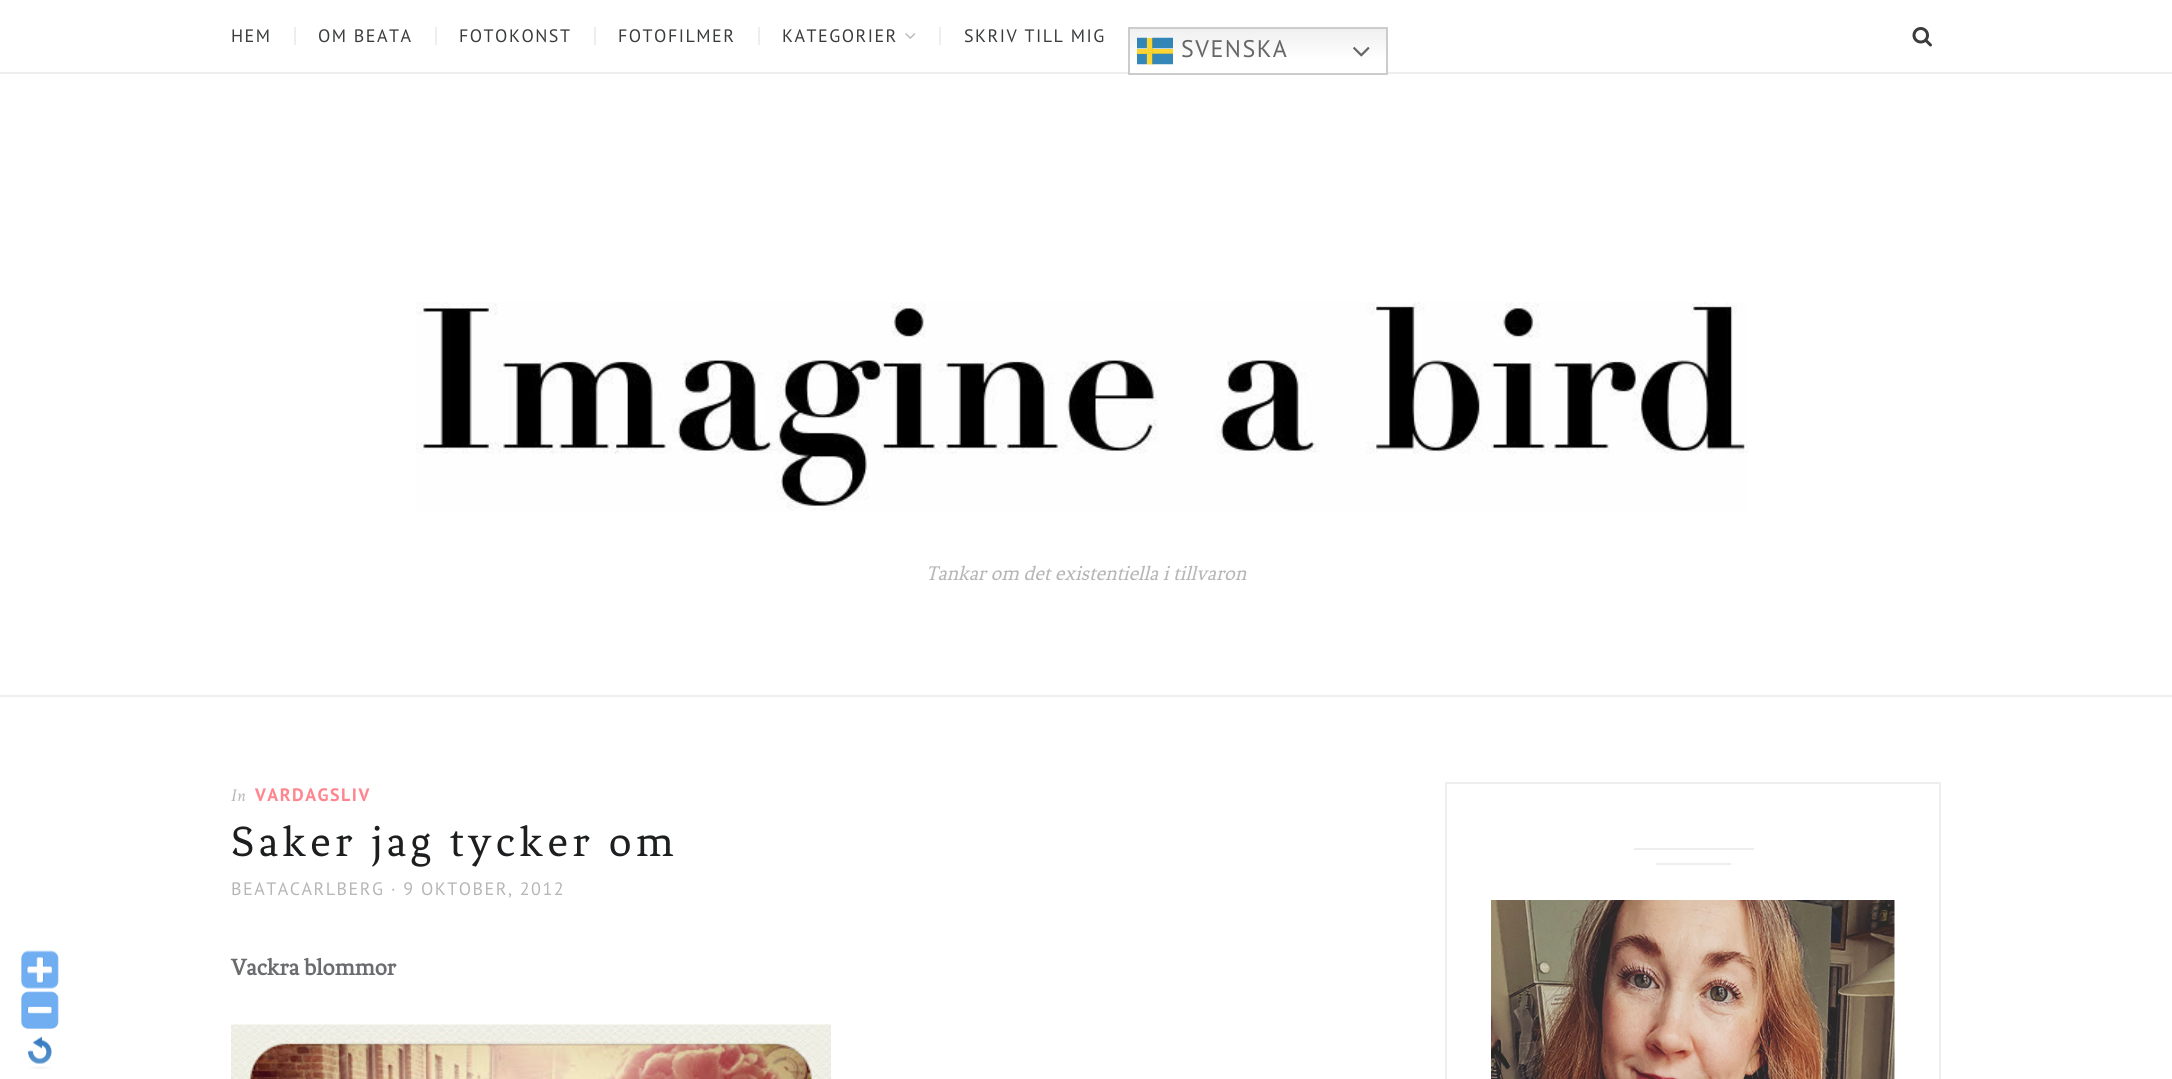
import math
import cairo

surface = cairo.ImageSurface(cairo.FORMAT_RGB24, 2172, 1079)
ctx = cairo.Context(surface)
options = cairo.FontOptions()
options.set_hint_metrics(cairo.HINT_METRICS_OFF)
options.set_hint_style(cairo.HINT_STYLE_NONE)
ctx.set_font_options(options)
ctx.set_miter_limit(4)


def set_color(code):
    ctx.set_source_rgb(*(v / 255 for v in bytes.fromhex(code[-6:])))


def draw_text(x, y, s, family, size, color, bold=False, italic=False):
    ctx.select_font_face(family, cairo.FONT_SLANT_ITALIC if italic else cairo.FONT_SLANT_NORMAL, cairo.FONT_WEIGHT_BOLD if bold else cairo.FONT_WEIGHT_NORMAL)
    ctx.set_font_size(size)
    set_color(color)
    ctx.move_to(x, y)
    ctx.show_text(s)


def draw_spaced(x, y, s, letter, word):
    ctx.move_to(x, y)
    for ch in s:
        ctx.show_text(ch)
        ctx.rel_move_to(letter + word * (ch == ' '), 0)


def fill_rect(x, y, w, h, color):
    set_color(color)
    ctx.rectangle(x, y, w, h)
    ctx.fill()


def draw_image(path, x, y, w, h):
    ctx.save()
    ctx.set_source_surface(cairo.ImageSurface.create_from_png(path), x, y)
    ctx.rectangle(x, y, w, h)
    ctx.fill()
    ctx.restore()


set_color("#ffffff")
ctx.paint()
ctx.select_font_face("PT Sans")
ctx.set_font_size(18)
set_color("#3a3b3d")
draw_spaced(231, 42, "HEM", 1.5, 0)
fill_rect(294, 27, 2, 18, "#eeeeee")
set_color("#3a3b3d")
draw_spaced(318, 42, "OM BEATA", 1.5, 0)
fill_rect(435, 27, 2, 18, "#eeeeee")
set_color("#3a3b3d")
draw_spaced(459, 42, "FOTOKONST", 1.5, 0)
fill_rect(594, 27, 2, 18, "#eeeeee")
set_color("#3a3b3d")
draw_spaced(618, 42, "FOTOFILMER", 1.5, 0)
fill_rect(758, 27, 2, 18, "#eeeeee")
set_color("#3a3b3d")
draw_spaced(782, 42, "KATEGORIER", 1.5, 0)
draw_image("assets/img1.png", 905, 33, 11, 6)
fill_rect(939, 27, 2, 18, "#eeeeee")
set_color("#3a3b3d")
draw_spaced(964, 42, "SKRIV TILL MIG", 1.5, 0)
fill_rect(0, 72, 2172, 2, "#eeeeee")
gradient = cairo.LinearGradient(1258, 27, 1258, 75)
gradient.add_color_stop_rgba(0, 0.937, 0.937, 0.937, 1)
gradient.add_color_stop_rgba(0.7, 1, 1, 1, 1)
ctx.set_source(gradient)
ctx.rectangle(1130, 29, 256, 44)
ctx.fill()
ctx.rectangle(1129, 28, 258, 46)
set_color("#cccccc")
ctx.stroke()
draw_image("assets/img2.png", 1137, 37, 36, 28)
ctx.set_font_size(24)
set_color("#666666")
draw_spaced(1181, 57, "SVENSKA", 1.5, 0)
draw_image("assets/img3.png", 1353, 47, 17, 10)
draw_image("assets/img4.png", 1912, 27, 20, 20)
fill_rect(0, 695, 2172, 2, "#eeeeee")
draw_image("assets/img5.png", 416, 302, 1333, 209)
draw_text(926, 580, "Tankar om det existentiella i tillvaron", "Fenix", 21, "#b6b6b6", italic=True)
draw_text(231, 801, "In", "Crimson Text", 18, "#b6b6b6", italic=True)
ctx.select_font_face("PT Sans", cairo.FONT_SLANT_NORMAL, cairo.FONT_WEIGHT_BOLD)
set_color("#ff868f")
draw_spaced(255, 801, "VARDAGSLIV", 1.5, 0)
ctx.select_font_face("Fenix")
ctx.set_font_size(45)
set_color("#1d1e1f")
draw_spaced(231, 856, "Saker jag tycker om", 4.5, 0)
ctx.select_font_face("PT Sans")
ctx.set_font_size(18)
set_color("#b6b6b6")
draw_spaced(231, 895, "BEATACARLBERG · 9 OKTOBER, 2012", 1.5, 0)
draw_text(231, 975, "Vackra blommor", "Fenix", 24, "#6a6c6f", bold=True)
draw_image("assets/img6.png", 231, 1024, 600, 55)
ctx.rectangle(1446, 783, 494, 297)
set_color("#eeeeee")
ctx.stroke()
fill_rect(1634, 848, 120, 2, "#eeeeee")
fill_rect(1656, 863, 75, 2, "#eeeeee")
draw_image("assets/img7.png", 1491, 900, 404, 179)
draw_image("assets/img8.png", 21, 950, 38, 39)
draw_image("assets/img9.png", 21, 991, 38, 38)
draw_image("assets/img10.png", 28, 1036, 24, 33)
surface.write_to_png("output.png")
